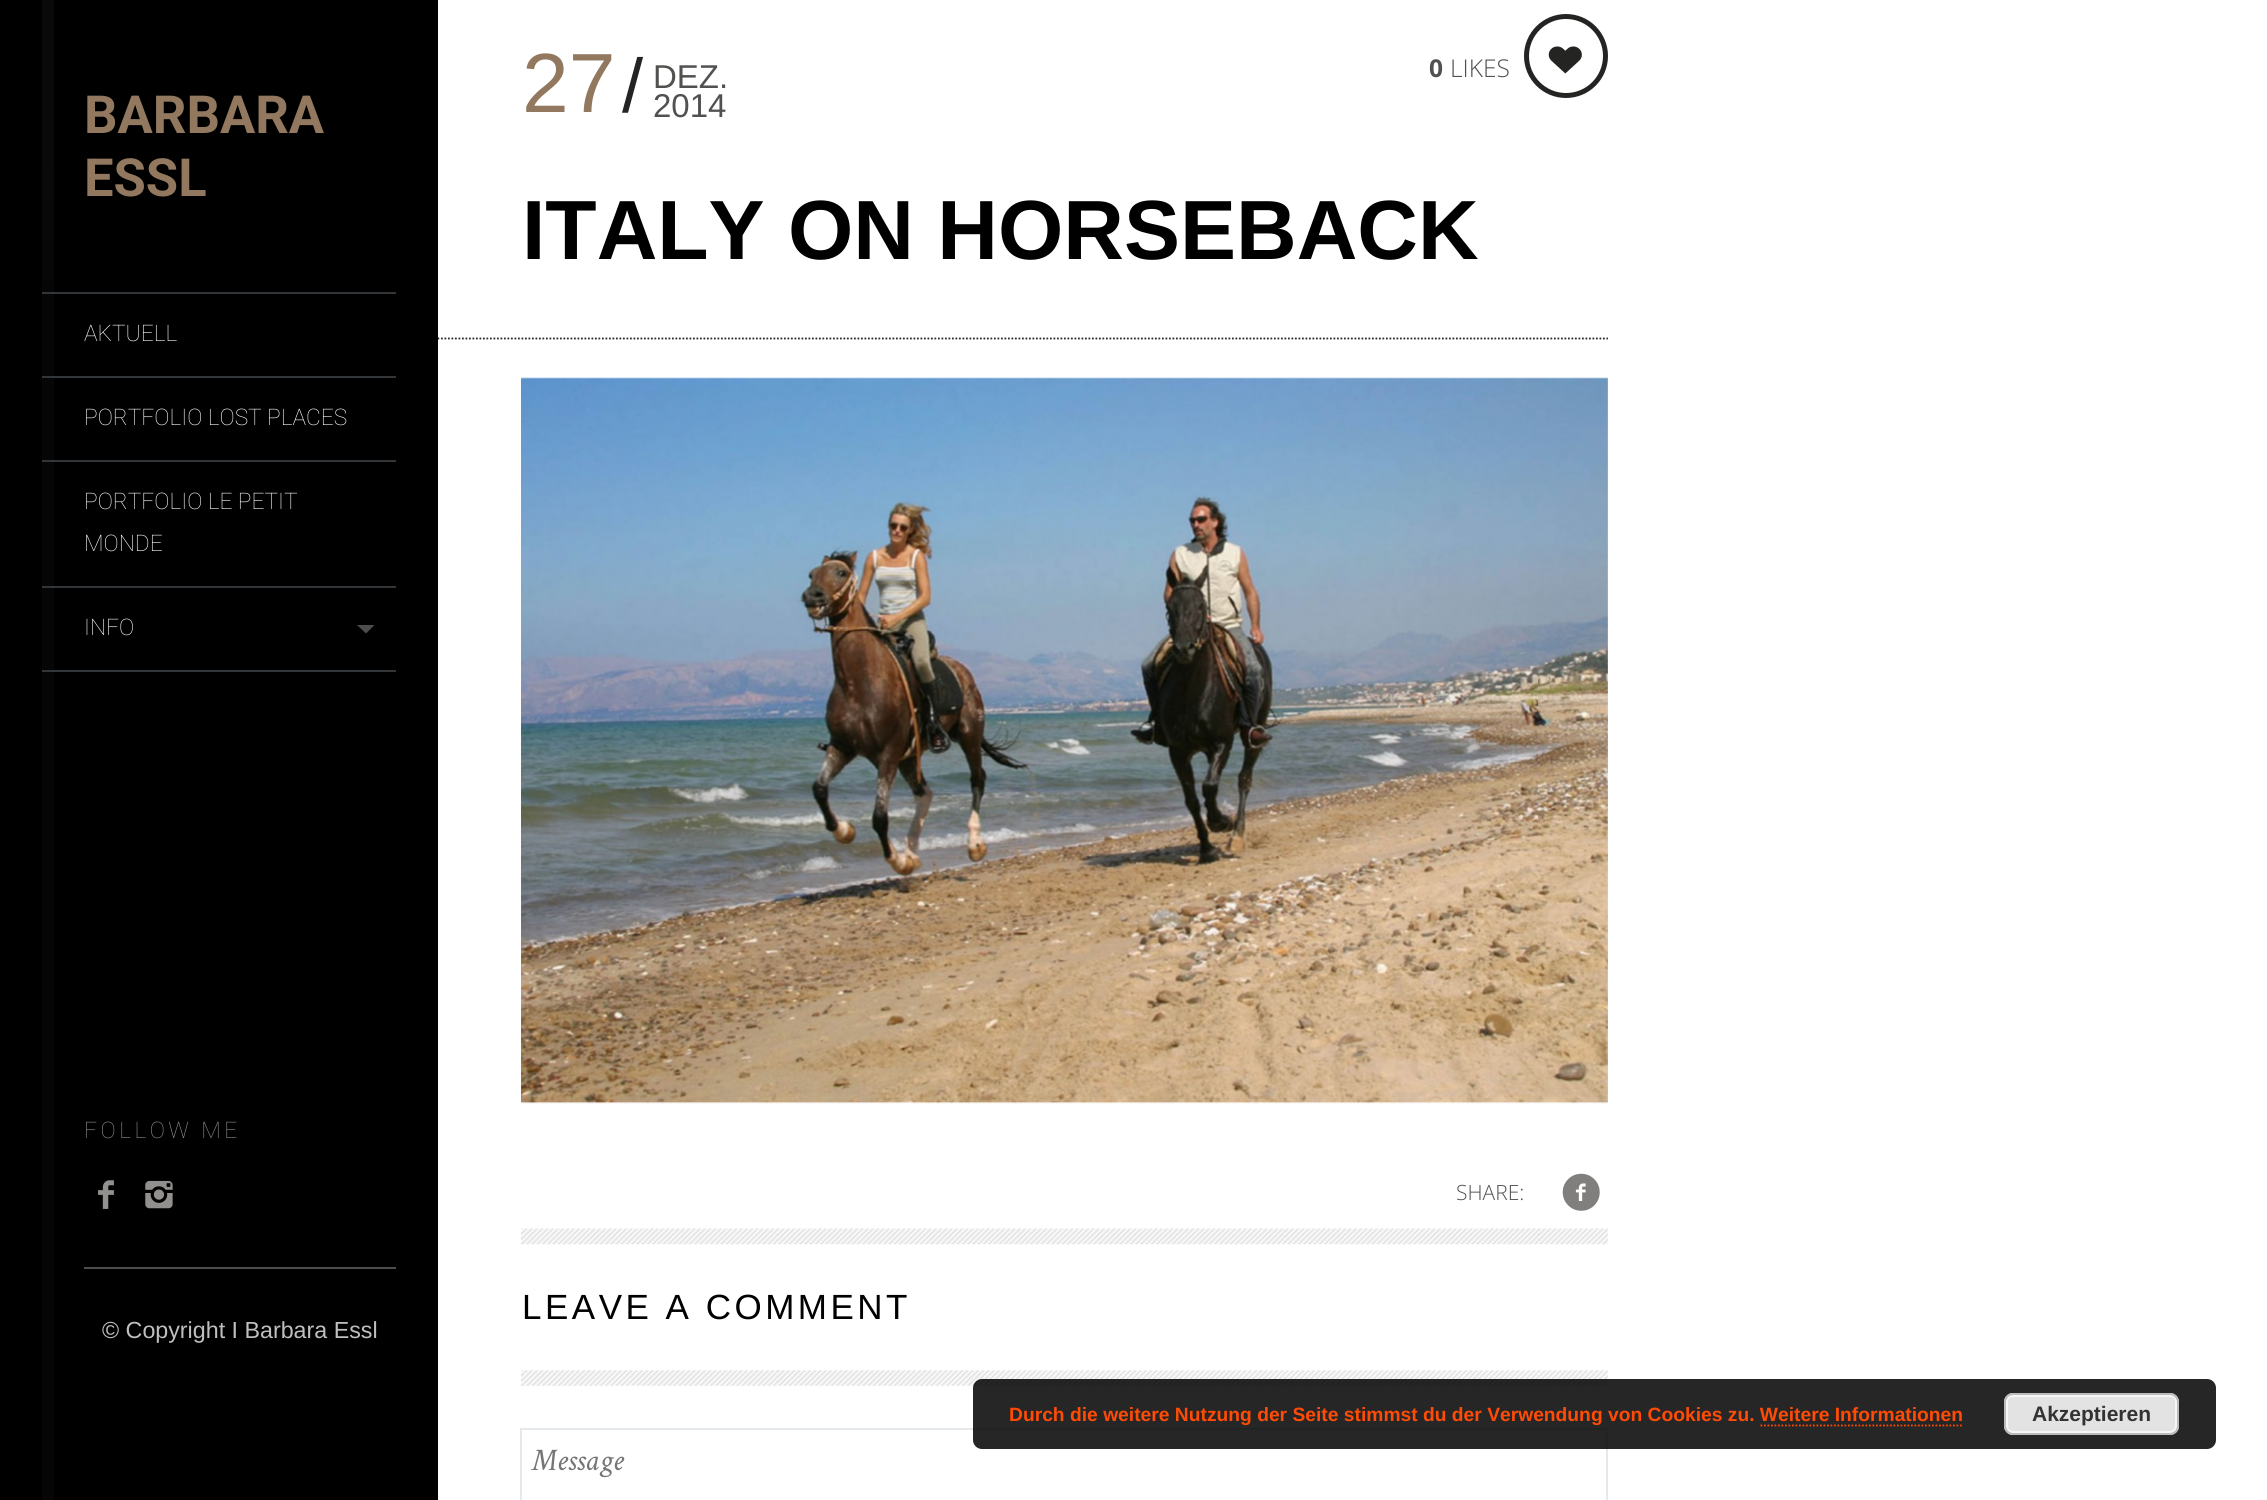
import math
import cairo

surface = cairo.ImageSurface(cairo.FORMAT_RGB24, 2267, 1500)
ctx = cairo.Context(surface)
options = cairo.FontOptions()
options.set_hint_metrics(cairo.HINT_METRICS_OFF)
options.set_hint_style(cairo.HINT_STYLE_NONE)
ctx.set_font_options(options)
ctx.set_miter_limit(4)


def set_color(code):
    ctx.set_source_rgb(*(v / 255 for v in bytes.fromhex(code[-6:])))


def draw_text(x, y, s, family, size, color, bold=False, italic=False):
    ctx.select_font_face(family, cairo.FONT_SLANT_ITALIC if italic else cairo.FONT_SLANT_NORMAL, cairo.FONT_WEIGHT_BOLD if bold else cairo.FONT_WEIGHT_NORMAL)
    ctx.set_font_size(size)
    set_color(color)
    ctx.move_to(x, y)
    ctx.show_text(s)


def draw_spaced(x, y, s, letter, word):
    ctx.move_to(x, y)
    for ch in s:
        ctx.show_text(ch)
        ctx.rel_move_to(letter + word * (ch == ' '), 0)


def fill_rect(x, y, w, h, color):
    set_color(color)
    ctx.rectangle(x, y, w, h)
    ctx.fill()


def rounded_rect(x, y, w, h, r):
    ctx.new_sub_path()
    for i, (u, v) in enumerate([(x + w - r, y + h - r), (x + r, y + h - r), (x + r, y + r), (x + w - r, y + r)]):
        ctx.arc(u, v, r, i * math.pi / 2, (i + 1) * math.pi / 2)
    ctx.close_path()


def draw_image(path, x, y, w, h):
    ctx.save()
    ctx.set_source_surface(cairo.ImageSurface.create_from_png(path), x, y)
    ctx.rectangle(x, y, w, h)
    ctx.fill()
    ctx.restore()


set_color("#ffffff")
ctx.paint()
ctx.new_path()
ctx.move_to(437.5, 338.5)
ctx.line_to(1608, 338.5)
set_color("#242423")
ctx.set_line_width(1.8)
ctx.set_dash([1.75, 1.75])
ctx.stroke()
fill_rect(0, 0, 438, 1500, "#000000")
fill_rect(42, 294, 12, 1206, "#060606")
gradient = cairo.LinearGradient(43, 0, 43, 294)
gradient.add_color_stop_rgba(0.5, 0.047, 0.039, 0.031, 1)
gradient.add_color_stop_rgba(1, 0.024, 0.024, 0.024, 1)
ctx.set_source(gradient)
ctx.rectangle(42, 0, 12, 292)
ctx.fill()
draw_text(84, 133, "BARBARA", "Roboto", 52.5, "#91785e", bold=True)
draw_text(84, 196, "ESSL", "Roboto", 52.5, "#91785e", bold=True)
fill_rect(42, 292, 354, 2, "#333638")
fill_rect(42, 376, 354, 2, "#333638")
draw_text(84, 341, "AKTUELL", "Roboto Thin", 22.75, "#ffffff")
fill_rect(42, 460, 354, 2, "#333638")
draw_text(84, 425, "PORTFOLIO LOST PLACES", "Roboto Thin", 22.75, "#ffffff")
fill_rect(42, 586, 354, 2, "#333638")
draw_text(84, 509, "PORTFOLIO LE PETIT", "Roboto Thin", 22.75, "#ffffff")
draw_text(84, 551, "MONDE", "Roboto Thin", 22.75, "#ffffff")
fill_rect(42, 670, 354, 2, "#333638")
draw_text(84, 635, "INFO", "Roboto Thin", 22.75, "#ffffff")
set_color("#4d4d4d")
ctx.new_path()
ctx.move_to(357, 625)
ctx.line_to(374.5, 625)
ctx.line_to(366, 633.5)
ctx.close_path()
ctx.fill()
fill_rect(84, 1267, 312, 2, "#4d4d4d")
set_color("#91908e")
draw_spaced(84, 1138, "FOLLOW ME", 3.5, 0)
draw_image("assets/img1.png", 98, 1180, 16, 29)
draw_image("assets/img2.png", 145, 1180, 28, 29)
draw_text(102, 1338, "© Copyright I Barbara Essl", "Liberation Sans", 23.25, "#bfbfbf")
draw_text(522, 112, "27", "Liberation Sans", 84, "#91785e")
draw_text(622, 112, "/", "Liberation Sans", 76, "#242423")
draw_text(653, 88, "DEZ.", "Liberation Sans", 33, "#515150")
draw_text(653, 117, "2014", "Liberation Sans", 33, "#515150")
draw_text(522, 259, "ITALY ON HORSEBACK", "Liberation Sans", 84, "#000000", bold=True)
draw_text(1429, 77, "0", "Open Sans", 24.5, "#515150", bold=True)
draw_text(1450, 77, "LIKES", "Open Sans Light", 24.5, "#515150")
ctx.new_path()
ctx.arc(1566, 56, 39.5, 0, 2 * math.pi)
set_color("#242423")
ctx.set_line_width(5)
ctx.set_dash([])
ctx.stroke()
draw_image("assets/img3.png", 1548, 46, 34, 28)
draw_image("assets/img4.png", 521, 377, 1087, 727)
draw_text(1456, 1200, "SHARE:", "Open Sans Light", 21, "#515150")
draw_image("assets/img5.png", 1562, 1173, 38, 38)
draw_image("assets/img6.png", 521, 1228, 1087, 17)
ctx.select_font_face("Liberation Sans")
ctx.set_font_size(35)
set_color("#000000")
draw_spaced(522, 1319, "LEAVE A COMMENT", 3.5, 0)
draw_image("assets/img7.png", 521, 1370, 1087, 16)
ctx.rectangle(521, 1429, 1086, 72)
set_color("#e5e9eb")
ctx.set_line_width(2)
ctx.stroke()
draw_text(532, 1470, "Message", "Crimson Text", 31.5, "#757575", italic=True)
ctx.set_source_rgba(0, 0, 0, 0.85)
rounded_rect(973, 1379, 1243, 70, 9)
ctx.fill()
draw_text(1009, 1421, "Durch die weitere Nutzung der Seite stimmst du der Verwendung von Cookies zu. Weitere Informationen", "Liberation Sans", 19.25, "#ff4b05", bold=True)
set_color("#e3e3e3")
rounded_rect(2004, 1393, 175, 42, 9)
ctx.fill()
rounded_rect(2007, 1396, 169, 36, 6)
set_color("#f6f6f6")
ctx.stroke()
rounded_rect(2005, 1394, 173, 40, 8)
set_color("#bbbbbb")
ctx.stroke()
draw_text(2032, 1421, "Akzeptieren", "Liberation Sans", 21, "#333333", bold=True)
ctx.new_path()
ctx.move_to(1760.5, 1425.5)
ctx.line_to(1963.5, 1425.5)
set_color("#ff4b05")
ctx.set_line_width(1.8)
ctx.set_dash([1.75, 1.75])
ctx.stroke()
surface.write_to_png("output.png")
